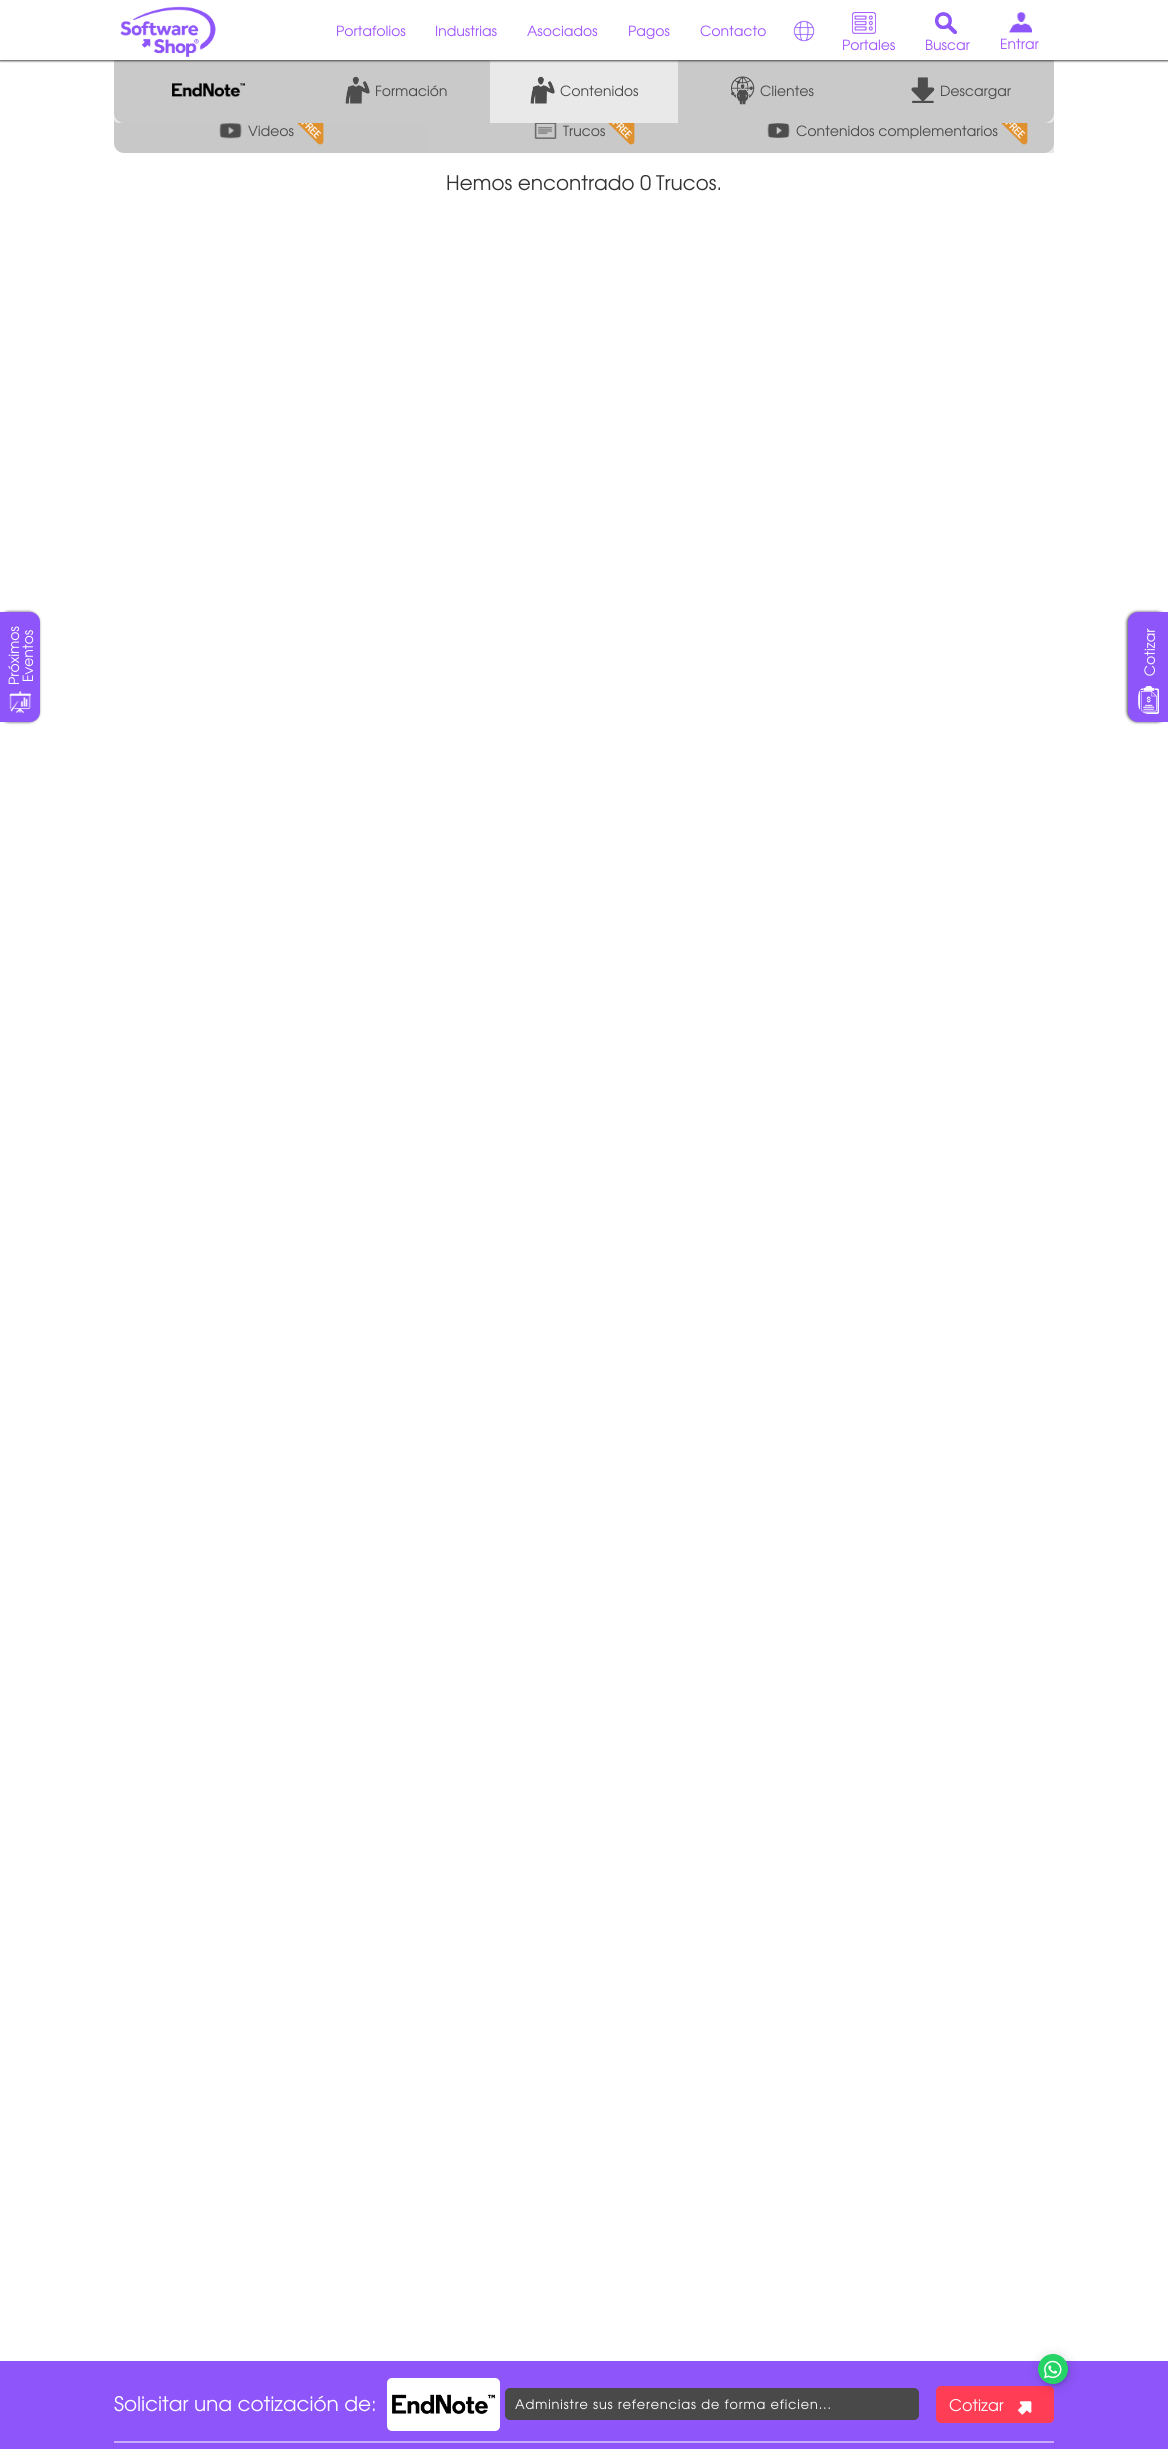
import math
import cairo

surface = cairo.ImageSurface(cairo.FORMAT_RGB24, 1168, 2449)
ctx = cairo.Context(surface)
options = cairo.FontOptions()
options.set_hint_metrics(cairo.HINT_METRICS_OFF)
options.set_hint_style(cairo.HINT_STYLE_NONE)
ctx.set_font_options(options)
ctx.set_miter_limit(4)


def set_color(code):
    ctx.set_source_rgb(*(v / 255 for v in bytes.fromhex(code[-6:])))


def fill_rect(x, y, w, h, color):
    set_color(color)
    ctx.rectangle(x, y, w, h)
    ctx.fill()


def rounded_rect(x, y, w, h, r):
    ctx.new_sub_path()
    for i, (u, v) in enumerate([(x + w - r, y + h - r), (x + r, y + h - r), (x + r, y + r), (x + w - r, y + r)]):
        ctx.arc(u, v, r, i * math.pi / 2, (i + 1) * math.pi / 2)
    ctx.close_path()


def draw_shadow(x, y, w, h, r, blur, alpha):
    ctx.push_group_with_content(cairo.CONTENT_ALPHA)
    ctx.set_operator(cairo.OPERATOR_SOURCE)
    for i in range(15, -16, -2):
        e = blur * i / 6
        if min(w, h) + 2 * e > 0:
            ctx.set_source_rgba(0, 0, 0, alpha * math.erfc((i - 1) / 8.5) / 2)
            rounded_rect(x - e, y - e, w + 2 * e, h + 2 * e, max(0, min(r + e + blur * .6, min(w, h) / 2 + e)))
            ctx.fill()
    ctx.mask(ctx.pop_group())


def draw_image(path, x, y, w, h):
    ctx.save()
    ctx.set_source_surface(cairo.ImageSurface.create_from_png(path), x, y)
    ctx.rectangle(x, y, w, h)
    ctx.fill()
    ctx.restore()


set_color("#ffffff")
ctx.paint()
set_color("#e9e9e9")
ctx.new_path()
ctx.move_to(114, 100)
ctx.line_to(1054, 100)
ctx.line_to(1054, 153)
ctx.line_to(124, 153)
ctx.curve_to(118.5, 153, 114, 148.5, 114, 143)
ctx.close_path()
ctx.fill()
ctx.set_source_rgba(0.286, 0.286, 0.286, 0.2)
ctx.new_path()
ctx.move_to(114, 110)
ctx.line_to(427, 110)
ctx.line_to(427, 153)
ctx.line_to(124, 153)
ctx.curve_to(118.5, 153, 114, 148.5, 114, 143)
ctx.close_path()
ctx.fill()
set_color("#c9c9c9")
ctx.new_path()
ctx.move_to(741, 110)
ctx.line_to(1054, 110)
ctx.line_to(1054, 143)
ctx.curve_to(1054, 148.5, 1049.5, 153, 1044, 153)
ctx.line_to(741, 153)
ctx.close_path()
ctx.fill()
set_color("#e9e9e9")
ctx.new_path()
ctx.move_to(114, 60)
ctx.line_to(1054, 60)
ctx.line_to(1054, 118)
ctx.curve_to(1054, 121, 1052, 123, 1049, 123)
ctx.line_to(119, 123)
ctx.curve_to(116, 123, 114, 121, 114, 118)
ctx.close_path()
ctx.fill()
set_color("#c9c9c9")
ctx.new_path()
ctx.move_to(114, 60)
ctx.line_to(302, 60)
ctx.line_to(302, 123)
ctx.line_to(124, 123)
ctx.curve_to(118.5, 123, 114, 118.5, 114, 113)
ctx.close_path()
ctx.fill()
fill_rect(302, 60, 188, 63, "#c9c9c9")
fill_rect(678, 60, 188, 63, "#c9c9c9")
ctx.new_path()
ctx.move_to(866, 60)
ctx.line_to(1054, 60)
ctx.line_to(1054, 113)
ctx.curve_to(1054, 118.5, 1049.5, 123, 1044, 123)
ctx.line_to(866, 123)
ctx.close_path()
ctx.fill()
ctx.save()
ctx.rectangle(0, 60, 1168, 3)
ctx.clip()
set_color("#494949")
draw_shadow(0, 1, 1168, 60, 0, 1, 1)
ctx.restore()
draw_image("assets/img1.png", 120, 6, 96, 51)
draw_image("assets/img2.png", 337, 25, 69, 12)
draw_image("assets/img3.png", 436, 25, 61, 12)
draw_image("assets/img4.png", 527, 25, 71, 12)
draw_image("assets/img5.png", 629, 25, 41, 14)
draw_image("assets/img6.png", 700, 25, 66, 12)
draw_image("assets/img7.png", 793, 20, 22, 22)
draw_image("assets/img8.png", 852, 12, 24, 22)
draw_image("assets/img9.png", 843, 39, 52, 12)
draw_image("assets/img10.png", 935, 12, 22, 22)
draw_image("assets/img11.png", 926, 39, 44, 12)
draw_image("assets/img12.png", 1009, 12, 23, 21)
draw_image("assets/img13.png", 1001, 38, 38, 12)
draw_image("assets/img14.png", 172, 83, 73, 14)
draw_image("assets/img15.png", 345, 76, 25, 28)
draw_image("assets/img16.png", 376, 85, 71, 12)
draw_image("assets/img17.png", 530, 76, 25, 28)
draw_image("assets/img18.png", 560, 85, 79, 12)
draw_image("assets/img19.png", 731, 76, 24, 29)
draw_image("assets/img20.png", 760, 85, 54, 12)
draw_image("assets/img21.png", 911, 77, 24, 26)
draw_image("assets/img22.png", 941, 85, 70, 14)
draw_image("assets/img23.png", 219, 123, 23, 16)
draw_image("assets/img24.png", 248, 125, 46, 12)
draw_image("assets/img25.png", 297, 123, 27, 22)
fill_rect(427, 123, 314, 30, "#c9c9c9")
draw_image("assets/img26.png", 534, 123, 23, 16)
draw_image("assets/img27.png", 563, 125, 42, 12)
draw_image("assets/img25.png", 608, 123, 27, 22)
draw_image("assets/img28.png", 767, 123, 23, 15)
draw_image("assets/img29.png", 796, 125, 202, 14)
draw_image("assets/img25.png", 1001, 123, 27, 22)
draw_image("assets/img30.png", 447, 175, 204, 16)
draw_image("assets/img31.png", 656, 175, 64, 16)
set_color("#494949")
draw_shadow(-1, 612, 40, 110, 10, 1.5, 1)
set_color("#8e55fa")
ctx.new_path()
ctx.move_to(0, 612)
ctx.line_to(30, 612)
ctx.curve_to(35.5, 612, 40, 616.5, 40, 622)
ctx.line_to(40, 712)
ctx.curve_to(40, 717.5, 35.5, 722, 30, 722)
ctx.line_to(0, 722)
ctx.close_path()
ctx.fill()
draw_image("assets/img32.png", 8, 626, 12, 58)
draw_image("assets/img33.png", 22, 630, 12, 51)
draw_image("assets/img34.png", 9, 691, 23, 23)
set_color("#494949")
draw_shadow(1127, 612, 40, 110, 10, 1.5, 1)
set_color("#8e55fa")
ctx.new_path()
ctx.move_to(1138, 612)
ctx.line_to(1168, 612)
ctx.line_to(1168, 722)
ctx.line_to(1138, 722)
ctx.curve_to(1132.5, 722, 1128, 717.5, 1128, 712)
ctx.line_to(1128, 622)
ctx.curve_to(1128, 616.5, 1132.5, 612, 1138, 612)
ctx.close_path()
ctx.fill()
draw_image("assets/img35.png", 1144, 628, 11, 48)
draw_image("assets/img36.png", 1138, 686, 21, 28)
fill_rect(0, 2361, 1168, 88, "#8e55fa")
set_color("#ff3d55")
rounded_rect(936, 2386, 118, 37, 5)
ctx.fill()
set_color("#000000")
draw_shadow(1039, 2356, 30, 30, 15, 1.5, 0.12)
draw_image("assets/img42.png", 1017, 2401, 15, 14)
draw_shadow(1039, 2356, 30, 30, 15, 6, 0.14)
set_color("#25d366")
ctx.arc(1053, 2369, 15, 0, 2 * math.pi)
ctx.fill()
draw_image("assets/img37.png", 1044, 2360, 18, 19)
draw_image("assets/img38.png", 114, 2395, 261, 17)
set_color("#ffffff")
rounded_rect(387, 2378, 113, 53, 5)
ctx.fill()
draw_image("assets/img39.png", 392, 2394, 103, 20)
set_color("#494949")
rounded_rect(505, 2388, 414, 32, 5)
ctx.fill()
draw_image("assets/img40.png", 515, 2399, 315, 11)
draw_image("assets/img41.png", 949, 2399, 55, 13)
fill_rect(114, 2441, 940, 2, "#c7aafd")
surface.write_to_png("output.png")
